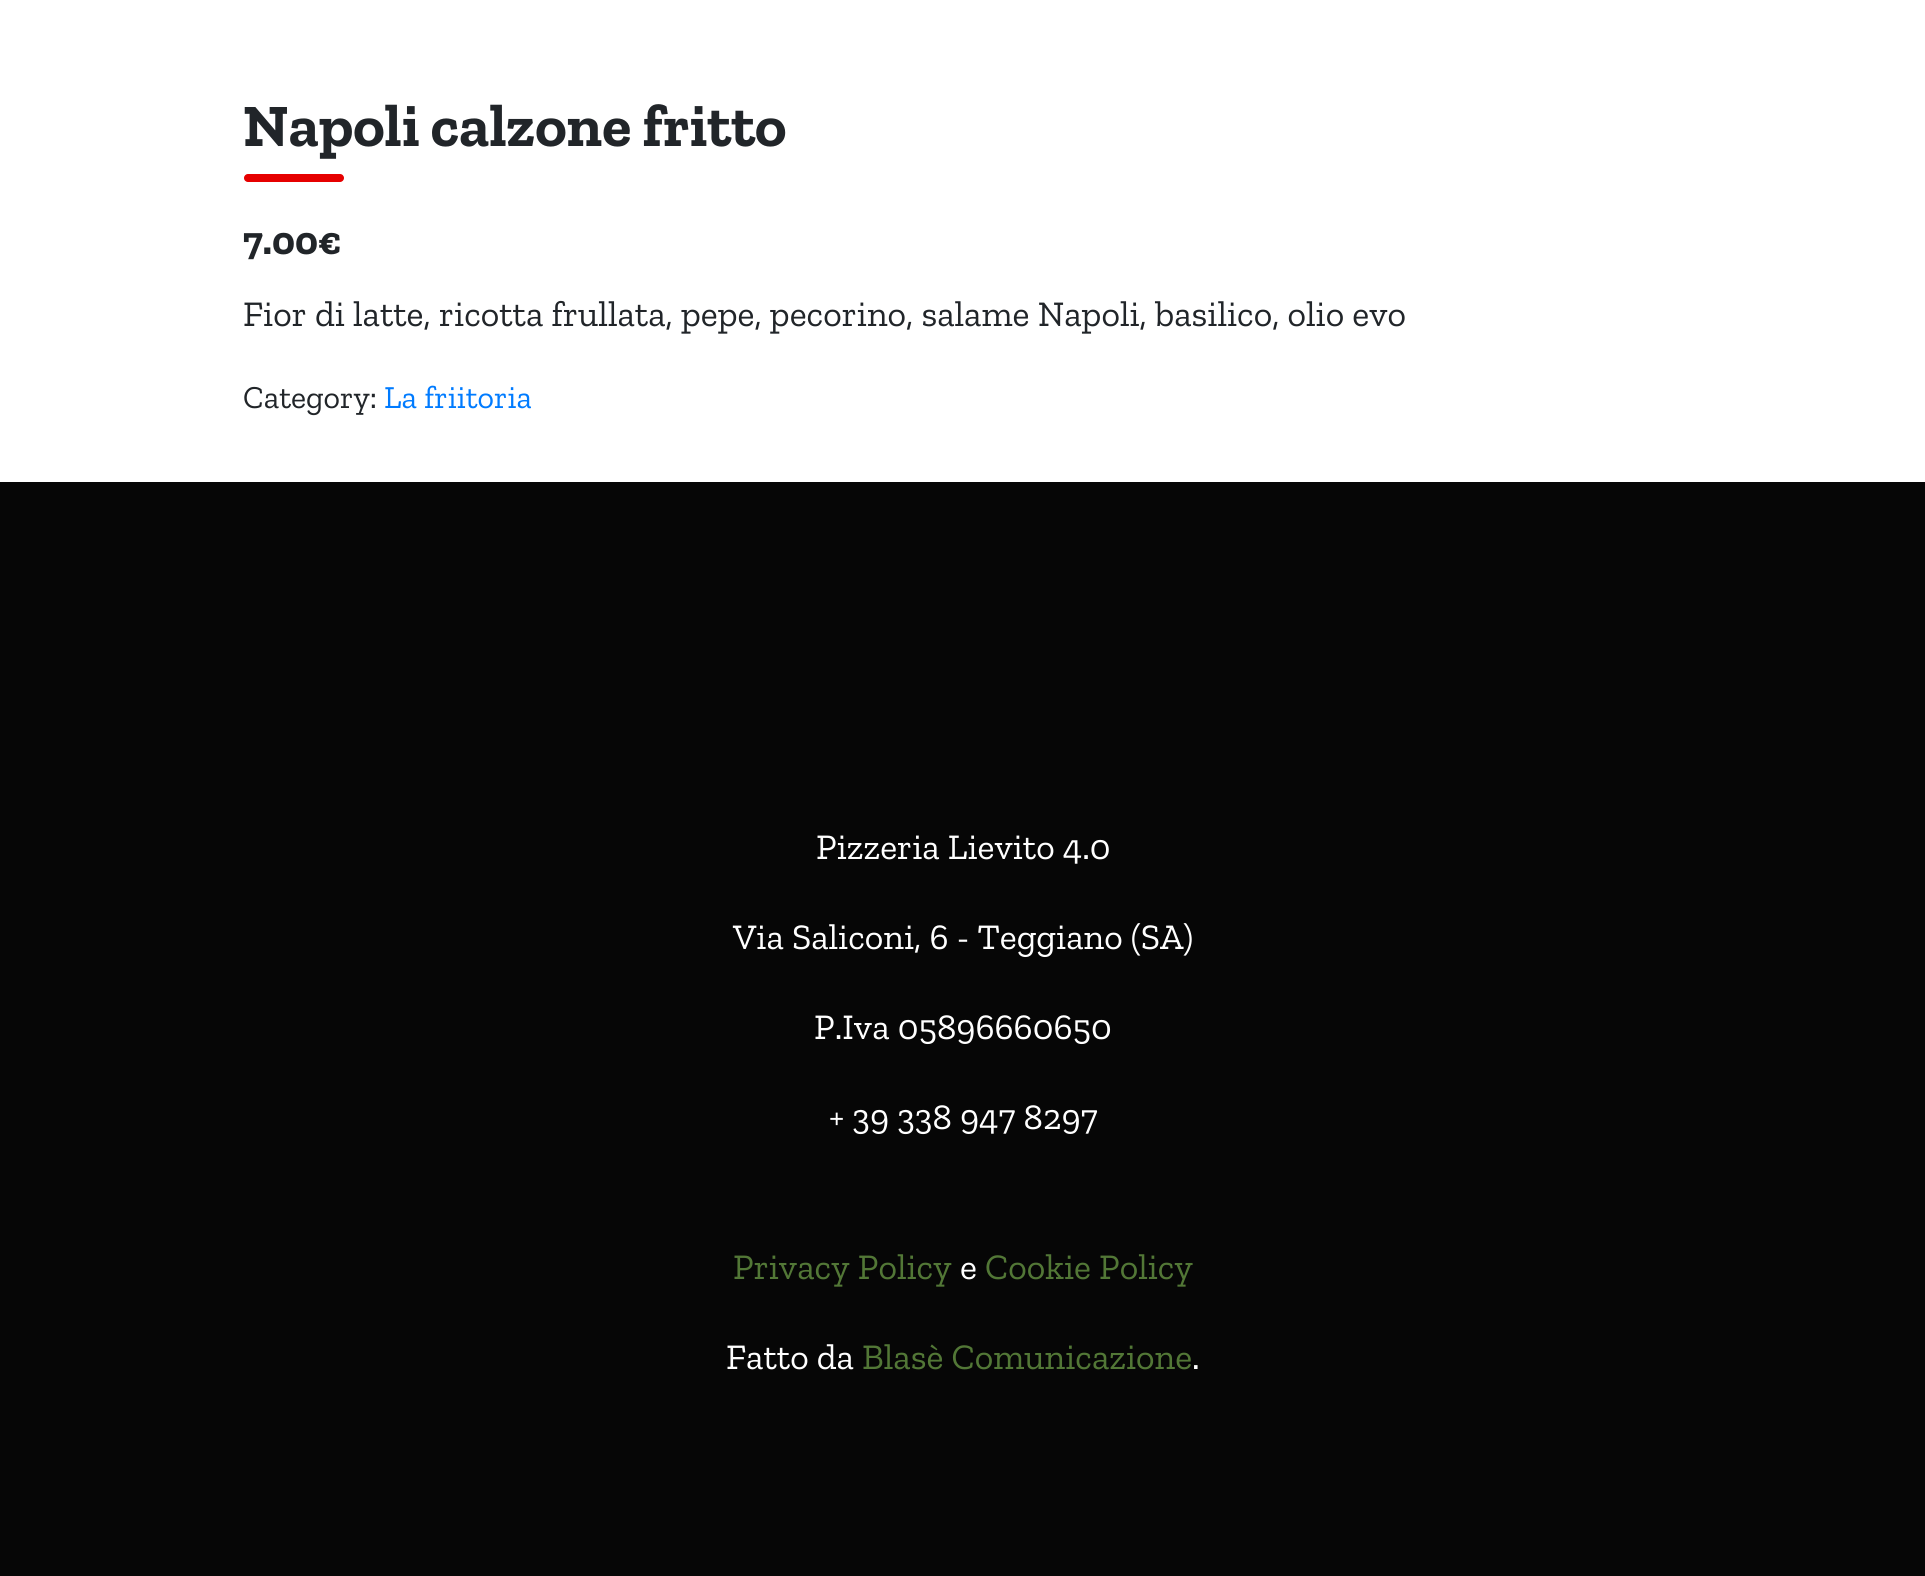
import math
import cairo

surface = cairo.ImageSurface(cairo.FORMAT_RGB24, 1925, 1576)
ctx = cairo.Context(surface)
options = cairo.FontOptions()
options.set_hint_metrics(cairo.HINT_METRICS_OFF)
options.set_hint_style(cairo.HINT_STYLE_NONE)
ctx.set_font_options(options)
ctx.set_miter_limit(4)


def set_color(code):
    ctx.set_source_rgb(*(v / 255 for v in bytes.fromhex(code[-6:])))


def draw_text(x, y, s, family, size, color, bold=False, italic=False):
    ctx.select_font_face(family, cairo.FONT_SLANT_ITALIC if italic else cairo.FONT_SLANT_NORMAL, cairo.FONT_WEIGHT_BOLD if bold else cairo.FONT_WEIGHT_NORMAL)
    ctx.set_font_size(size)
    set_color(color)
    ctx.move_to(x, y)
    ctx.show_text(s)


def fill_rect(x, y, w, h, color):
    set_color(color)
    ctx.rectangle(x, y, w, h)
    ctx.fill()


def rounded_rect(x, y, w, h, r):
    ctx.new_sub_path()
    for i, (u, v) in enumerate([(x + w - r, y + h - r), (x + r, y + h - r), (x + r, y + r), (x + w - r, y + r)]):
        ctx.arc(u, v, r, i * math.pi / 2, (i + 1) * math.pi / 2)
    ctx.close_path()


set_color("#ffffff")
ctx.paint()
draw_text(243, 146, "Napoli calzone fritto", "Zilla Slab", 60, "#212529", bold=True)
set_color("#e60000")
rounded_rect(244, 174, 100, 8, 4)
ctx.fill()
draw_text(243, 254, "7.00€", "Zilla Slab", 40, "#212529", bold=True)
draw_text(243, 326, "Fior di latte, ricotta frullata, pepe, pecorino, salame Napoli, basilico, olio evo", "Zilla Slab", 36, "#212529")
draw_text(243, 408, "Category:", "Zilla Slab", 32, "#212529")
draw_text(384, 408, "La friitoria", "Zilla Slab", 32, "#007bff")
fill_rect(0, 482, 1925, 1094, "#060606")
draw_text(816, 859, "Pizzeria Lievito 4.0", "Zilla Slab", 36, "#ffffff")
draw_text(733, 949, "Via Saliconi, 6 - Teggiano (SA)", "Zilla Slab", 36, "#ffffff")
draw_text(814, 1039, "P.Iva 05896660650", "Zilla Slab", 36, "#ffffff")
draw_text(829, 1129, "+ 39 338 947 8297", "Zilla Slab", 36, "#ffffff")
draw_text(733, 1279, "Privacy Policy", "Zilla Slab", 36, "#527736")
draw_text(960, 1279, "e", "Zilla Slab", 36, "#ffffff")
draw_text(985, 1279, "Cookie Policy", "Zilla Slab", 36, "#527736")
draw_text(726, 1369, "Fatto da", "Zilla Slab", 36, "#ffffff")
draw_text(862, 1369, "Blasè Comunicazione", "Zilla Slab", 36, "#527736")
draw_text(1192, 1369, ".", "Zilla Slab", 36, "#ffffff")
surface.write_to_png("output.png")
